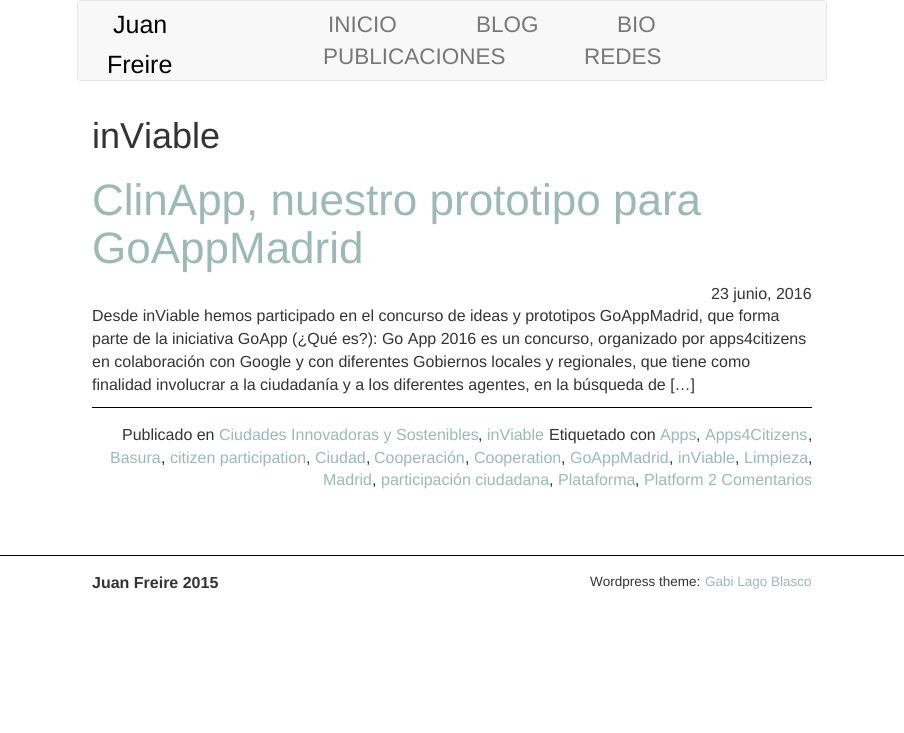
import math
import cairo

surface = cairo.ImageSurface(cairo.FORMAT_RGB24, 904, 733)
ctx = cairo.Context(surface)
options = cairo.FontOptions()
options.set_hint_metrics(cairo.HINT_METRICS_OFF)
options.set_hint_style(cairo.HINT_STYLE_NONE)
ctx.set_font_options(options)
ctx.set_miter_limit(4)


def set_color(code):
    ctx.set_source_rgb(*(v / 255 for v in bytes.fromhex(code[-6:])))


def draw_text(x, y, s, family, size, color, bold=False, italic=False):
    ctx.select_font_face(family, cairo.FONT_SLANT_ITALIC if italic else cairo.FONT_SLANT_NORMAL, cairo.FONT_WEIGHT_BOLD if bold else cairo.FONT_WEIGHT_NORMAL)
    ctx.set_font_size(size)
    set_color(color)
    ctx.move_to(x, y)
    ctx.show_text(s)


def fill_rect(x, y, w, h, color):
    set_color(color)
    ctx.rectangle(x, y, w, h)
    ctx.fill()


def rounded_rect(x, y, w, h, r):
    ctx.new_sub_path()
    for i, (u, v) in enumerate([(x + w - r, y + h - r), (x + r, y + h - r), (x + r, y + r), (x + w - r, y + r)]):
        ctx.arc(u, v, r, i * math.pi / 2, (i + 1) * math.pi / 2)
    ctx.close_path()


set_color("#ffffff")
ctx.paint()
set_color("#f8f8f8")
rounded_rect(77.5, 0.5, 749, 80, 3.5)
ctx.fill_preserve()
set_color("#e7e7e7")
ctx.set_line_width(1)
ctx.stroke()
draw_text(113, 33, "Juan", "Liberation Sans", 25, "#000000")
draw_text(107, 73, "Freire", "Liberation Sans", 25, "#000000")
draw_text(328, 32, "INICIO", "Liberation Sans", 22.5, "#777777")
draw_text(476, 32, "BLOG", "Liberation Sans", 22.5, "#777777")
draw_text(617, 32, "BIO", "Liberation Sans", 22.5, "#777777")
draw_text(323, 64, "PUBLICACIONES", "Liberation Sans", 22.5, "#777777")
draw_text(584, 64, "REDES", "Liberation Sans", 22.5, "#777777")
draw_text(92, 148, "inViable", "Liberation Sans", 36, "#333333")
draw_text(92, 215, "ClinApp, nuestro prototipo para", "Liberation Sans", 44, "#9db9b4")
draw_text(92, 263, "GoAppMadrid", "Liberation Sans", 44, "#9db9b4")
draw_text(711, 299, "23 junio, 2016", "Liberation Sans", 16, "#333333")
draw_text(92, 321, "Desde inViable hemos participado en el concurso de ideas y prototipos GoAppMadrid, que forma", "Liberation Sans", 16, "#333333")
draw_text(92, 344, "parte de la iniciativa GoApp (¿Qué es?): Go App 2016 es un concurso, organizado por apps4citizens", "Liberation Sans", 16, "#333333")
draw_text(92, 367, "en colaboración con Google y con diferentes Gobiernos locales y regionales, que tiene como", "Liberation Sans", 16, "#333333")
draw_text(92, 390, "finalidad involucrar a la ciudadanía y a los diferentes agentes, en la búsqueda de […]", "Liberation Sans", 16, "#333333")
fill_rect(92, 407, 720, 1, "#000000")
draw_text(122, 440, "Publicado en", "Liberation Sans", 16, "#333333")
draw_text(219, 440, "Ciudades Innovadoras y Sostenibles", "Liberation Sans", 16, "#9db9b4")
draw_text(478, 440, ",", "Liberation Sans", 16, "#333333")
draw_text(487, 440, "inViable", "Liberation Sans", 16, "#9db9b4")
draw_text(549, 440, "Etiquetado con", "Liberation Sans", 16, "#333333")
draw_text(660, 440, "Apps", "Liberation Sans", 16, "#9db9b4")
draw_text(696, 440, ",", "Liberation Sans", 16, "#333333")
draw_text(705, 440, "Apps4Citizens", "Liberation Sans", 16, "#9db9b4")
draw_text(808, 440, ",", "Liberation Sans", 16, "#333333")
draw_text(110, 463, "Basura", "Liberation Sans", 16, "#9db9b4")
draw_text(161, 463, ",", "Liberation Sans", 16, "#333333")
draw_text(170, 463, "citizen participation", "Liberation Sans", 16, "#9db9b4")
draw_text(306, 463, ",", "Liberation Sans", 16, "#333333")
draw_text(315, 463, "Ciudad", "Liberation Sans", 16, "#9db9b4")
draw_text(366, 463, ",", "Liberation Sans", 16, "#333333")
draw_text(374, 463, "Cooperación", "Liberation Sans", 16, "#9db9b4")
draw_text(465, 463, ",", "Liberation Sans", 16, "#333333")
draw_text(474, 463, "Cooperation", "Liberation Sans", 16, "#9db9b4")
draw_text(561, 463, ",", "Liberation Sans", 16, "#333333")
draw_text(570, 463, "GoAppMadrid", "Liberation Sans", 16, "#9db9b4")
draw_text(669, 463, ",", "Liberation Sans", 16, "#333333")
draw_text(678, 463, "inViable", "Liberation Sans", 16, "#9db9b4")
draw_text(735, 463, ",", "Liberation Sans", 16, "#333333")
draw_text(744, 463, "Limpieza", "Liberation Sans", 16, "#9db9b4")
draw_text(808, 463, ",", "Liberation Sans", 16, "#333333")
draw_text(323, 485, "Madrid", "Liberation Sans", 16, "#9db9b4")
draw_text(372, 485, ",", "Liberation Sans", 16, "#333333")
draw_text(381, 485, "participación ciudadana", "Liberation Sans", 16, "#9db9b4")
draw_text(549, 485, ",", "Liberation Sans", 16, "#333333")
draw_text(558, 485, "Plataforma", "Liberation Sans", 16, "#9db9b4")
draw_text(635, 485, ",", "Liberation Sans", 16, "#333333")
draw_text(644, 485, "Platform 2 Comentarios", "Liberation Sans", 16, "#9db9b4")
fill_rect(0, 555, 904, 1, "#000000")
draw_text(92, 588, "Juan Freire 2015", "Liberation Sans", 16, "#333333", bold=True)
draw_text(590, 586, "Wordpress theme:", "Liberation Sans", 13.5, "#333333")
draw_text(705, 586, "Gabi Lago Blasco", "Liberation Sans", 13.5, "#9db9b4")
surface.write_to_png("output.png")
